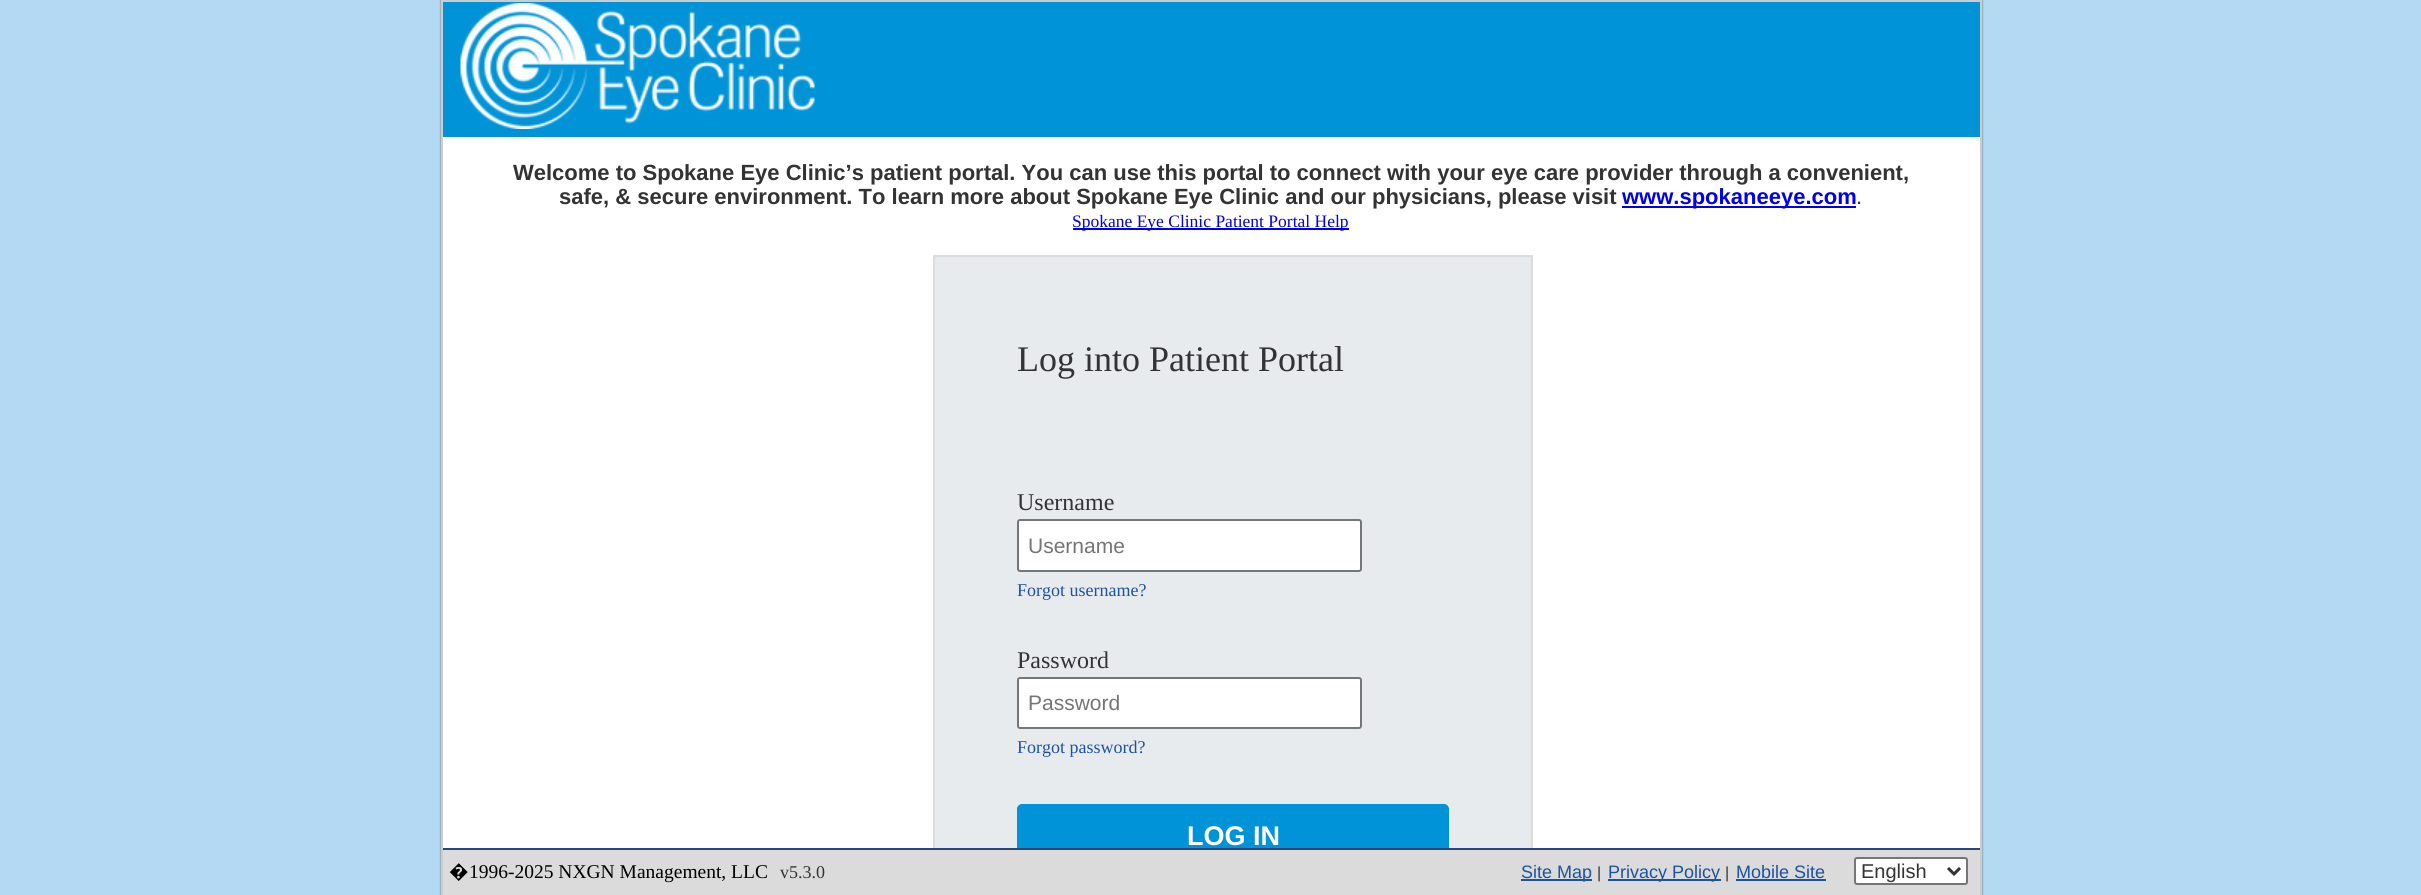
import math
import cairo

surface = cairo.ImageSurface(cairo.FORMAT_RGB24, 2421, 895)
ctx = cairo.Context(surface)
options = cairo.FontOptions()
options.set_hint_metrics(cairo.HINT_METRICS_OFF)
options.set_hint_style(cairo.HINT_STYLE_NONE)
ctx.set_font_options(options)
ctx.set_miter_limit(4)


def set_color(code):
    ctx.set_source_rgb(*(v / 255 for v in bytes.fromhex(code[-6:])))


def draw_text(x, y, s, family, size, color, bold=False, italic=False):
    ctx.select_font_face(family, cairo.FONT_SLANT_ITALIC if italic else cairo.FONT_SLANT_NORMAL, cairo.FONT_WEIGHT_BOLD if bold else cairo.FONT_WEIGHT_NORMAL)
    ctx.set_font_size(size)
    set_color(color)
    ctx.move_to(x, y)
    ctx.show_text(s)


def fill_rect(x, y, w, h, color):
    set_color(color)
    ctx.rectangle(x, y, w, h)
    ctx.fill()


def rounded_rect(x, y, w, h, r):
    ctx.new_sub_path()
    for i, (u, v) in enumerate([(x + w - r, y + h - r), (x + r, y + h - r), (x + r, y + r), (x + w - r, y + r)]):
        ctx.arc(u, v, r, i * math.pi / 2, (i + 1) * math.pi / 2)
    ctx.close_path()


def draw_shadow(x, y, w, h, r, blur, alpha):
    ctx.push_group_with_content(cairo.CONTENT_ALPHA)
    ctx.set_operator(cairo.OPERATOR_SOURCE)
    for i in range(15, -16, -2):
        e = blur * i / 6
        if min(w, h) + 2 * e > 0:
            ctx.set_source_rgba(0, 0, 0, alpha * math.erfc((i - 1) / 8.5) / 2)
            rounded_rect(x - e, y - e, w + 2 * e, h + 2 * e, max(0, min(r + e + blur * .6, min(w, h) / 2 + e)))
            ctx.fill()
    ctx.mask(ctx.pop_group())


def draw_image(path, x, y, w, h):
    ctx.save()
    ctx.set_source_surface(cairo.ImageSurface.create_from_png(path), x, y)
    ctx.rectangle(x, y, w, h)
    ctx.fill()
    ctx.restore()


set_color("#b4d9f3")
ctx.paint()
set_color("#666666")
draw_shadow(441, 0, 1541, 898, 0, 1, 1)
fill_rect(443, 137, 1537, 711, "#ffffff")
ctx.rectangle(442, 1, 1539, 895)
set_color("#cccccc")
ctx.stroke()
fill_rect(443, 2, 1537, 135, "#0093d7")
draw_image("assets/img1.png", 460, 3, 355, 126)
draw_text(513, 180, "Welcome to Spokane Eye Clinic’s patient portal. You can use this portal to connect with your eye care provider through a convenient,", "Liberation Sans", 22, "#333333", bold=True)
draw_text(559, 204, "safe, & secure environment. To learn more about Spokane Eye Clinic and our physicians, please visit", "Liberation Sans", 22, "#333333", bold=True)
fill_rect(1622, 206, 234, 2, "#0000ee")
draw_text(1622, 204, "www.spokaneeye.com", "Liberation Sans", 22, "#0000ee", bold=True)
draw_text(1856, 204, ".", "Liberation Sans", 22, "#333333")
fill_rect(1073, 228, 276, 2, "#0000ee")
draw_text(1072, 227, "Spokane Eye Clinic Patient Portal Help", "Liberation Serif", 17.5, "#0000ee")
fill_rect(935, 257, 596, 591, "#e8ebed")
ctx.rectangle(934, 256, 598, 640)
set_color("#dcdcdc")
ctx.stroke()
draw_text(1017, 371, "Log into Patient Portal", "Liberation Serif", 36, "#333333")
draw_text(1017, 510, "Username", "Liberation Serif", 24, "#333333")
set_color("#ffffff")
rounded_rect(1018, 520, 343, 51, 2)
ctx.fill_preserve()
set_color("#767676")
ctx.stroke()
draw_text(1028, 553, "Username", "Liberation Sans", 21, "#757575")
draw_text(1017, 596, "Forgot username?", "Liberation Serif", 18, "#1c529f")
draw_text(1017, 668, "Password", "Liberation Serif", 24, "#333333")
set_color("#ffffff")
rounded_rect(1018, 678, 343, 50, 2)
ctx.fill_preserve()
set_color("#767676")
ctx.stroke()
draw_text(1028, 710, "Password", "Liberation Sans", 21, "#757575")
draw_text(1017, 753, "Forgot password?", "Liberation Serif", 18, "#1c529f")
set_color("#0093d7")
rounded_rect(1018, 805, 430, 66, 4)
ctx.fill_preserve()
ctx.stroke()
draw_text(1187, 845, "LOG IN", "Liberation Sans", 27, "#ffffff", bold=True)
fill_rect(443, 850, 1537, 45, "#dbdbdb")
fill_rect(443, 848, 1537, 2, "#284775")
draw_text(449, 878, "�", "Noto Sans", 19.5, "#000000")
draw_text(469, 878, "1996-2025 NXGN Management, LLC", "Liberation Serif", 19.5, "#000000")
draw_text(780, 878, "v5.3.0", "Liberation Serif", 18, "#333333")
fill_rect(1521, 879, 71, 2, "#1c529f")
draw_text(1521, 878, "Site Map", "Liberation Sans", 18, "#1c529f")
draw_text(1597, 878, "|", "Liberation Sans", 16, "#333333")
fill_rect(1608, 879, 113, 2, "#1c529f")
draw_text(1608, 878, "Privacy Policy", "Liberation Sans", 18, "#1c529f")
draw_text(1725, 878, "|", "Liberation Sans", 16, "#333333")
draw_text(1736, 878, "Mobile Site", "Liberation Sans", 18, "#1c529f")
fill_rect(1736, 879, 90, 2, "#1c529f")
set_color("#ffffff")
rounded_rect(1855, 858, 112, 26, 2)
ctx.fill_preserve()
set_color("#767676")
ctx.stroke()
ctx.new_path()
ctx.move_to(1948, 868)
ctx.line_to(1954, 874)
ctx.line_to(1960, 868)
set_color("#333333")
ctx.set_line_width(3)
ctx.stroke()
draw_text(1861, 878, "English", "Liberation Sans", 20, "#333333")
surface.write_to_png("output.png")
